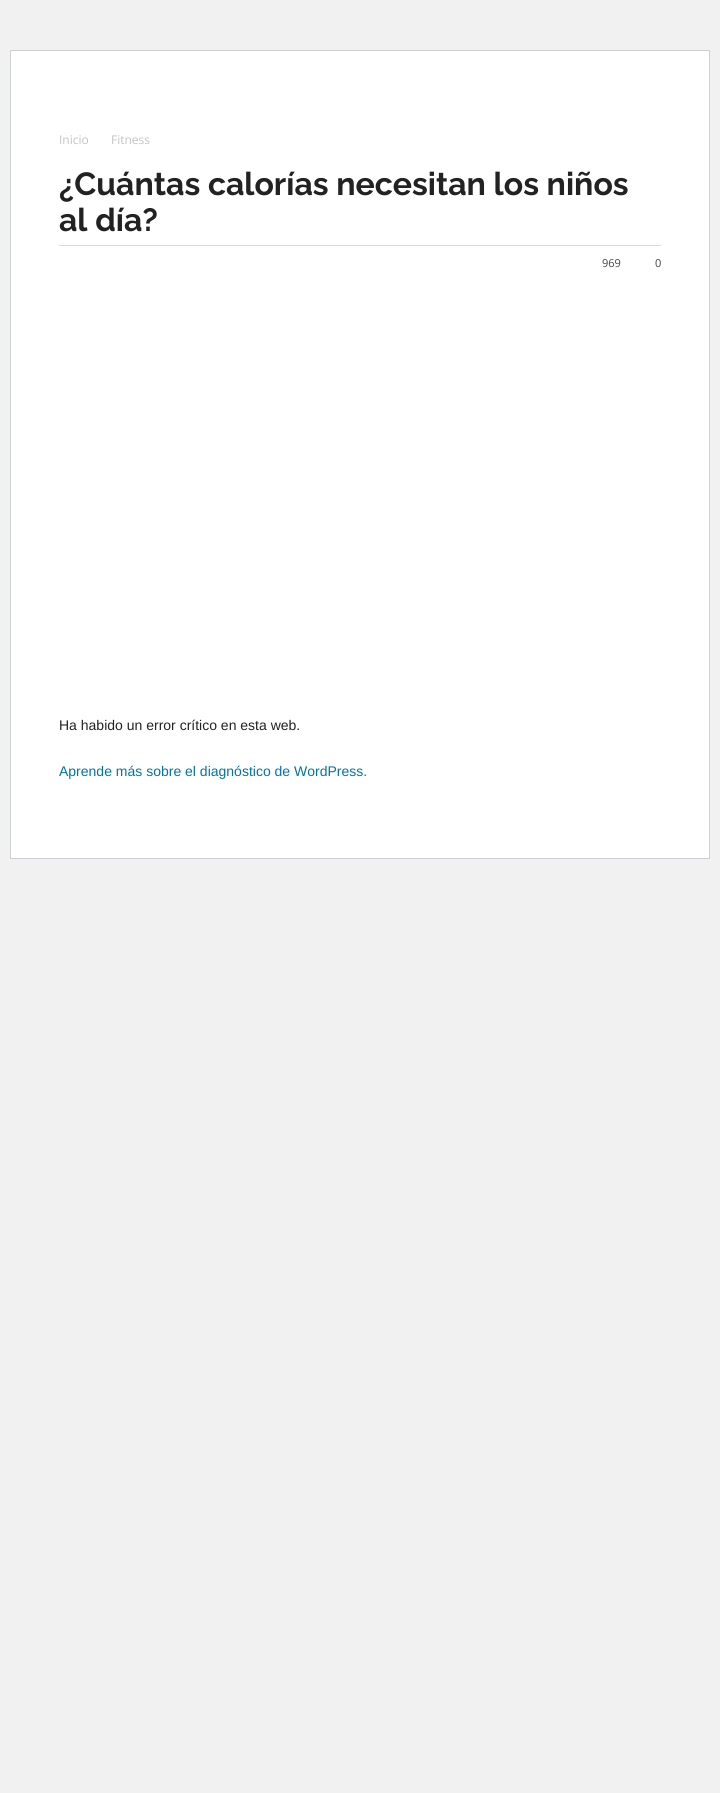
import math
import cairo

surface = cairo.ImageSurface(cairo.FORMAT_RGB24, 720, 1793)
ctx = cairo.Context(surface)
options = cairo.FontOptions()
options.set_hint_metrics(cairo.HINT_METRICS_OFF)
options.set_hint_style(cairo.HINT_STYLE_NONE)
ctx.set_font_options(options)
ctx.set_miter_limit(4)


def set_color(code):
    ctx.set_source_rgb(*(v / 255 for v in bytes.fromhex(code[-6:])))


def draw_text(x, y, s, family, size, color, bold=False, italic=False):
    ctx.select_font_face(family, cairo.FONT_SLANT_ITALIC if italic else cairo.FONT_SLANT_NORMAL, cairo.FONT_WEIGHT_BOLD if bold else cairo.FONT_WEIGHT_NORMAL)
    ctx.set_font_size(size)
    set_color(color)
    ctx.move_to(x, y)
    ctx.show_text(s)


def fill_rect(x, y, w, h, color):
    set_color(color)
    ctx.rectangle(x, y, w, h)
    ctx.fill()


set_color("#f1f1f1")
ctx.paint()
set_color("#ffffff")
ctx.rectangle(10.5, 50.5, 699, 808)
ctx.fill_preserve()
set_color("#ccd0d4")
ctx.set_line_width(1)
ctx.stroke()
draw_text(59, 144, "Inicio", "Open Sans", 12, "#c3c3c3")
draw_text(111, 144, "Fitness", "Open Sans", 12, "#c3c3c3")
fill_rect(59, 245, 602, 1, "#dadada")
draw_text(59, 195, "¿Cuántas calorías necesitan los niños", "Raleway", 32, "#222222", bold=True)
draw_text(59, 231, "al día?", "Raleway", 32, "#222222", bold=True)
draw_text(602, 267, "969", "Open Sans", 11, "#444444")
draw_text(655, 267, "0", "Open Sans", 11, "#444444")
draw_text(59, 730, "Ha habido un error crítico en esta web.", "Liberation Sans", 14, "#222222")
draw_text(59, 776, "Aprende más sobre el diagnóstico de WordPress.", "Liberation Sans", 14, "#0073aa")
surface.write_to_png("output.png")
